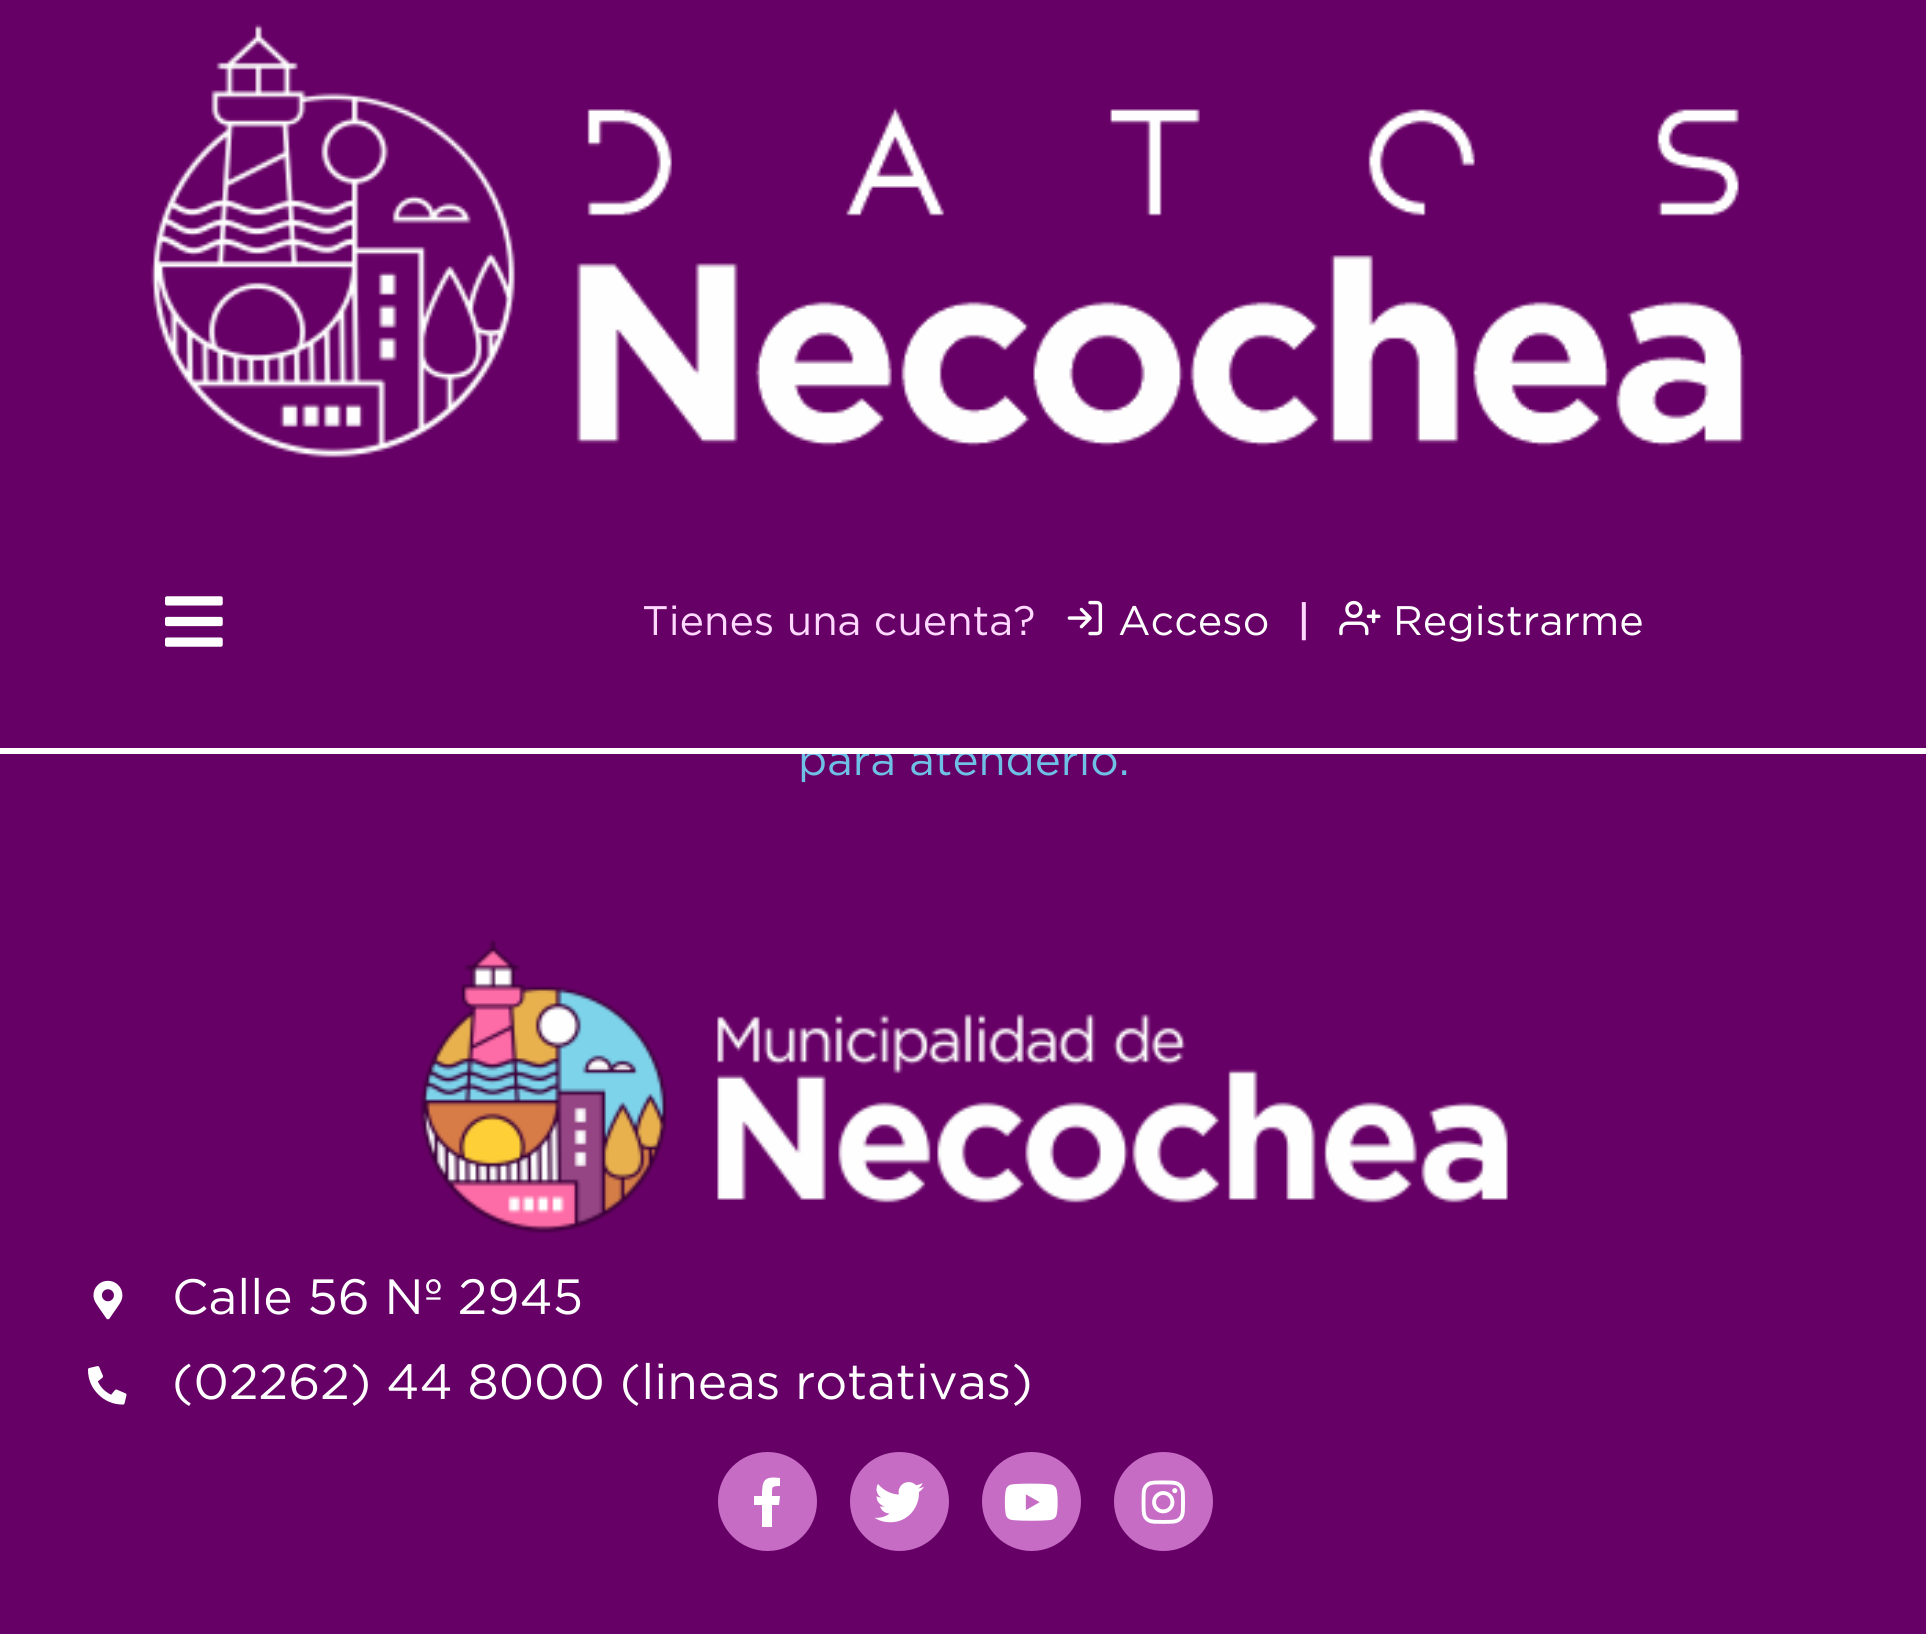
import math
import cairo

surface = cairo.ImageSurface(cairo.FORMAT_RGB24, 1926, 1635)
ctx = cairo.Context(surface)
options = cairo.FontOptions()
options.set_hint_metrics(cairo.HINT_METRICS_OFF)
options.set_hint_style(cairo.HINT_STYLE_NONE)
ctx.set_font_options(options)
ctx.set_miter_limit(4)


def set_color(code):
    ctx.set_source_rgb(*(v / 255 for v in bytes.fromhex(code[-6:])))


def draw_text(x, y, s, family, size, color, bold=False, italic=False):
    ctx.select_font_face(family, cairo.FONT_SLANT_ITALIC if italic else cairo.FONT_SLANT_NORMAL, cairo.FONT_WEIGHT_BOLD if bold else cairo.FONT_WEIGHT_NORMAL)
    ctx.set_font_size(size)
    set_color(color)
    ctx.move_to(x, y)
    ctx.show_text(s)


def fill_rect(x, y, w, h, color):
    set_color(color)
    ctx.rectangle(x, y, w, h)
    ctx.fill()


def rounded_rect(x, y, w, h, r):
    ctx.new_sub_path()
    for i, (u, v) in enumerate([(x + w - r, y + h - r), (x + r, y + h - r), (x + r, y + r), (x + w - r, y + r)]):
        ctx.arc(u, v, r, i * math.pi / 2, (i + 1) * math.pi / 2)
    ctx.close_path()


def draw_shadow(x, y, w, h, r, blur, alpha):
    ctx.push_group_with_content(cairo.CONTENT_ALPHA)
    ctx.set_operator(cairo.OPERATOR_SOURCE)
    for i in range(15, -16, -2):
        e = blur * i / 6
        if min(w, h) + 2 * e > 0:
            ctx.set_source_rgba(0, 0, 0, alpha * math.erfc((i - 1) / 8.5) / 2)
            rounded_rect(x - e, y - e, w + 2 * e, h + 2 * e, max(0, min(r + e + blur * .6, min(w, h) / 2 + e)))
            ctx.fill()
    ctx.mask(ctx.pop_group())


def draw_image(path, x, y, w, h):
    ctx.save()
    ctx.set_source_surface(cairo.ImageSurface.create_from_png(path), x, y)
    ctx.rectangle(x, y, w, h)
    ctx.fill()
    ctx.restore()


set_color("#ffffff")
ctx.paint()
fill_rect(0, 754, 1926, 880, "#670066")
set_color("#670066")
draw_shadow(0, 0, 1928, 754, 0, 14, 0.6)
draw_text(798, 775, "para atenderlo.", "Gotham", 44, "#6ec1e4")
fill_rect(0, 0, 1926, 748, "#670066")
fill_rect(0, 748, 1926, 6, "#ffffff")
draw_image("assets/img1.png", 150, 24, 1595, 434)
draw_image("assets/img2.png", 165, 596, 58, 51)
draw_text(642, 635, "Tienes una cuenta?", "Gotham", 41.25, "#ffd8ff")
draw_image("assets/img3.png", 1067, 600, 36, 36)
draw_text(1118, 635, "Acceso", "Gotham", 41.25, "#ffffff")
draw_text(1297, 635, "|", "Gotham Medium", 41.25, "#ffd8ff")
draw_image("assets/img4.png", 1339, 600, 42, 36)
draw_text(1393, 635, "Registrarme", "Gotham", 41.25, "#ffffff")
draw_image("assets/img5.png", 420, 940, 1088, 293)
draw_image("assets/img6.png", 93, 1280, 30, 40)
draw_text(172, 1314, "Calle 56 Nº 2945", "Gotham", 49.5, "#ffffff")
draw_image("assets/img7.png", 88, 1366, 39, 39)
draw_text(172, 1399, "(02262) 44 8000 (lineas rotativas)", "Gotham", 49.5, "#ffffff")
set_color("#c66cc5")
ctx.new_path()
ctx.arc(767.5, 1501.5, 49.5, 0, 2 * math.pi)
ctx.fill()
set_color("#ffffff")
ctx.new_path()
ctx.move_to(779, 1505)
ctx.line_to(772, 1505)
ctx.line_to(772, 1527)
ctx.line_to(762, 1527)
ctx.line_to(762, 1505)
ctx.line_to(754, 1505)
ctx.line_to(754, 1496)
ctx.line_to(762, 1496)
ctx.curve_to(762, 1480, 764, 1476, 780, 1478)
ctx.line_to(780, 1486)
ctx.curve_to(771, 1486, 772, 1487, 772, 1496)
ctx.line_to(780, 1496)
ctx.close_path()
ctx.fill()
set_color("#c66cc5")
ctx.arc(899.5, 1501.5, 49.5, 0, 2 * math.pi)
ctx.fill()
draw_image("assets/img8.png", 874, 1482, 50, 41)
ctx.arc(1031.5, 1501.5, 49.5, 0, 2 * math.pi)
ctx.fill()
draw_image("assets/img9.png", 1004, 1483, 54, 38)
ctx.arc(1163.5, 1501.5, 49.5, 0, 2 * math.pi)
ctx.fill()
draw_image("assets/img10.png", 1141, 1480, 44, 44)
surface.write_to_png("output.png")
